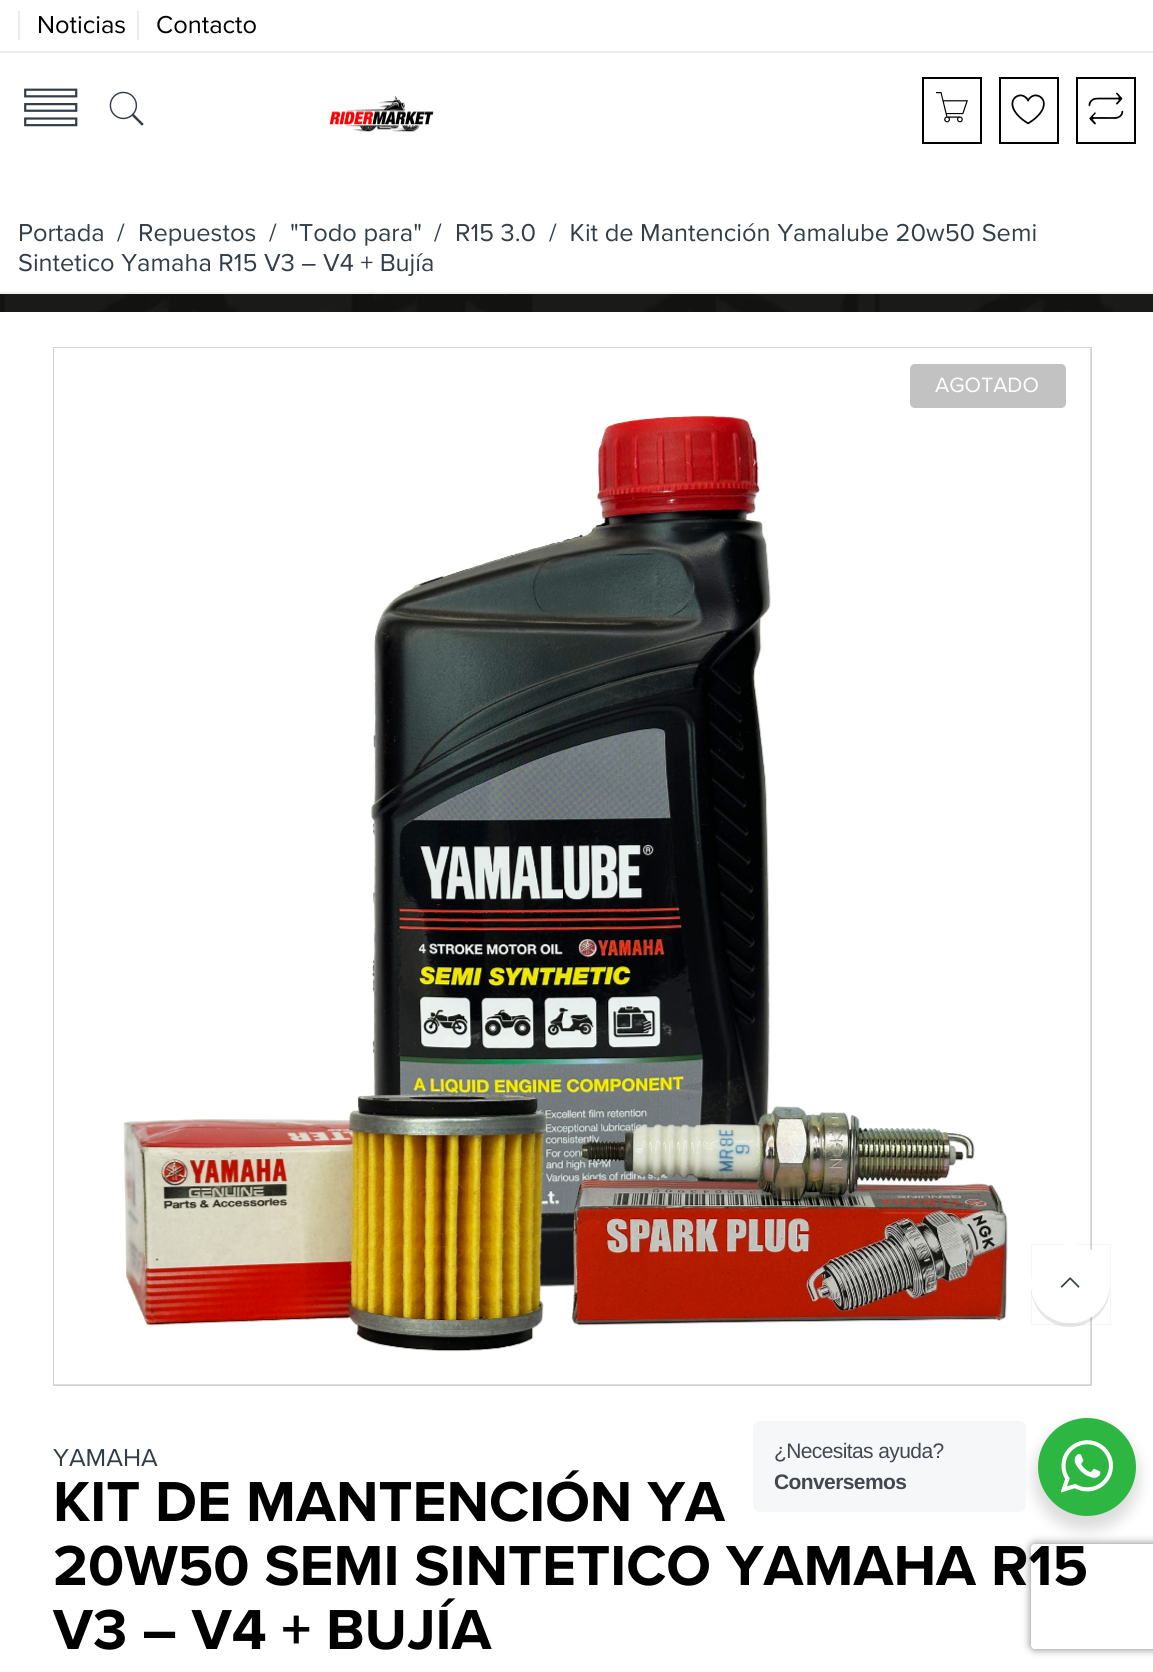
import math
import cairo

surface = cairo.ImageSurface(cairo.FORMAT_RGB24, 1153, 1672)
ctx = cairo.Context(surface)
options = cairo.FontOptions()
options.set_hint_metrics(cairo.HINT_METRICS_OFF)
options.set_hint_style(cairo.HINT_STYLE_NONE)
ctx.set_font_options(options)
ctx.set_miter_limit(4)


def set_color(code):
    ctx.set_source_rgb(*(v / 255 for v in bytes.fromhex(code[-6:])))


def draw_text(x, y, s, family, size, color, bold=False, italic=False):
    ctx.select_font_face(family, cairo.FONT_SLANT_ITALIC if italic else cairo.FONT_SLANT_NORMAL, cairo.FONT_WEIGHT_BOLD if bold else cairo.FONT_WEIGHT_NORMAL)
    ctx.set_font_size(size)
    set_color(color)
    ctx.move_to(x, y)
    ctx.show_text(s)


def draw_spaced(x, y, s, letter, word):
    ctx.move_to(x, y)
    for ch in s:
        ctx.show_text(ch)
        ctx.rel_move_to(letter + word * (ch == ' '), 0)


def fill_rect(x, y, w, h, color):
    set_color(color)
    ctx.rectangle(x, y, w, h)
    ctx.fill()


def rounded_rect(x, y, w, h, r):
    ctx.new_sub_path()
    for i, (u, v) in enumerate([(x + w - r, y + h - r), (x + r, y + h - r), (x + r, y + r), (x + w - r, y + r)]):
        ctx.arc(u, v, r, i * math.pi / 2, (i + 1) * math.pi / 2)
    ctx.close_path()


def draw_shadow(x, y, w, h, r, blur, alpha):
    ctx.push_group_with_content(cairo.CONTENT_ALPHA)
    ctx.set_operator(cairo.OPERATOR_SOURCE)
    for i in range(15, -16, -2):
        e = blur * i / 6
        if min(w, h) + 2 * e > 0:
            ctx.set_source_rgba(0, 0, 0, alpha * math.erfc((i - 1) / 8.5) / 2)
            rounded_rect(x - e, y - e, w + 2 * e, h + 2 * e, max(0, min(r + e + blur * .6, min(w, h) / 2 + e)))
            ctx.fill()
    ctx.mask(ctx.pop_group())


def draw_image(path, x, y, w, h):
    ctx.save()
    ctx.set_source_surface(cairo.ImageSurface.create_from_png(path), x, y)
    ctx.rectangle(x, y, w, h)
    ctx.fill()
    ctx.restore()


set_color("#ffffff")
ctx.paint()
draw_image("assets/img1.png", 0, 294, 1153, 18)
fill_rect(0, 51, 1153, 2, "#ececec")
draw_text(37, 33, "Noticias", "Proxima Nova", 25.4, "#000000")
fill_rect(18, 11, 2, 29, "#ececec")
draw_text(156, 33, "Contacto", "Proxima Nova", 25.4, "#000000")
fill_rect(137, 11, 2, 29, "#ececec")
draw_image("assets/img2.png", 24, 88, 54, 39)
draw_image("assets/img3.png", 109, 91, 35, 35)
draw_image("assets/img4.png", 329, 96, 105, 36)
ctx.rectangle(923, 78, 58, 65)
set_color("#000000")
ctx.stroke()
draw_image("assets/img5.png", 936, 92, 32, 31)
ctx.rectangle(1000, 78, 58, 65)
ctx.stroke()
draw_image("assets/img6.png", 1011, 94, 34, 31)
ctx.rectangle(1077, 78, 58, 65)
ctx.stroke()
draw_image("assets/img7.png", 1088, 92, 36, 33)
fill_rect(0, 292, 1153, 2, "#efefef")
draw_text(18, 241, "Portada", "Proxima Nova", 25.4, "#333e48")
draw_text(117, 241, "/", "Proxima Nova", 25.4, "#333e48")
draw_text(138, 241, "Repuestos", "Proxima Nova", 25.4, "#333e48")
draw_text(269, 241, "/", "Proxima Nova", 25.4, "#333e48")
draw_text(290, 241, "\"Todo para\"", "Proxima Nova", 25.4, "#333e48")
draw_text(434, 241, "/", "Proxima Nova", 25.4, "#333e48")
draw_text(455, 241, "R15 3.0", "Proxima Nova", 25.4, "#333e48")
draw_text(549, 241, "/  Kit de Mantención Yamalube 20w50 Semi", "Proxima Nova", 25.4, "#333e48")
draw_text(18, 271, "Sintetico Yamaha R15 V3 – V4 + Bujía", "Proxima Nova", 25.4, "#333e48")
ctx.rectangle(54, 348, 1037, 1037)
set_color("#d3d3d3")
ctx.stroke()
draw_image("assets/img8.png", 54, 348, 1037, 1037)
set_color("#c2c2c2")
rounded_rect(910, 364, 156, 44, 5)
ctx.fill()
draw_text(935, 392, "AGOTADO", "Proxima Nova", 21.5, "#ffffff")
draw_text(53, 1466, "YAMAHA", "Proxima Nova", 25.4, "#333e48")
draw_text(53, 1521, "KIT DE MANTENCIÓN YA", "Proxima Nova", 58.4, "#000000", bold=True)
draw_text(53, 1585, "20W50 SEMI SINTETICO YAMAHA R15", "Proxima Nova", 58.4, "#000000", bold=True)
draw_text(53, 1649, "V3 – V4 + BUJÍA", "Proxima Nova", 58.4, "#000000", bold=True)
ctx.rectangle(1031.45, 1244.45, 79.1, 80.1)
ctx.set_source_rgba(0, 0, 0, 0.04)
ctx.set_line_width(0.9)
ctx.stroke()
ctx.set_source_rgba(0, 0, 0, 0.1)
ctx.new_path()
ctx.move_to(1031, 1288)
ctx.curve_to(1031, 1296, 1034, 1303, 1038, 1310)
ctx.curve_to(1062, 1345, 1117, 1322, 1109, 1280)
ctx.curve_to(1110, 1289, 1108, 1298, 1103, 1306)
ctx.curve_to(1082, 1336, 1035, 1324, 1031, 1288)
ctx.close_path()
ctx.fill()
set_color("#ffffff")
ctx.arc(1070.5, 1283.5, 39.5, 0, 2 * math.pi)
ctx.fill()
draw_image("assets/img9.png", 1060, 1277, 20, 11)
set_color("#000000")
draw_shadow(1034, 1425, 105, 105, 52.5, 7, 0.14)
set_color("#f5f7f9")
rounded_rect(753, 1421, 273, 91, 7)
ctx.fill()
ctx.select_font_face("Liberation Sans")
ctx.set_font_size(21)
set_color("#43474e")
draw_spaced(774, 1458, "¿Necesitas ayuda?", -0.6, 0)
ctx.select_font_face("Liberation Sans", cairo.FONT_SLANT_NORMAL, cairo.FONT_WEIGHT_BOLD)
draw_spaced(774, 1489, "Conversemos", -0.6, 0)
set_color("#2db742")
ctx.new_path()
ctx.arc(1087, 1467, 49, 0, 2 * math.pi)
ctx.fill()
draw_image("assets/img10.png", 1061, 1440, 52, 53)
ctx.save()
ctx.set_fill_rule(cairo.FILL_RULE_EVEN_ODD)
ctx.new_path()
ctx.move_to(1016, 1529)
ctx.line_to(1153, 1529)
ctx.line_to(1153, 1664)
ctx.line_to(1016, 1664)
ctx.close_path()
ctx.move_to(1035, 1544)
ctx.line_to(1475, 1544)
ctx.curve_to(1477, 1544, 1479, 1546, 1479, 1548)
ctx.line_to(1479, 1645)
ctx.curve_to(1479, 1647, 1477, 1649, 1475, 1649)
ctx.line_to(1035, 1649)
ctx.curve_to(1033, 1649, 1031, 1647, 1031, 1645)
ctx.line_to(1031, 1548)
ctx.curve_to(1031, 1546, 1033, 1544, 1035, 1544)
ctx.close_path()
ctx.clip()
set_color("#808080")
draw_shadow(1031, 1544, 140, 105, 4, 4.5, 1)
ctx.restore()
surface.write_to_png("output.png")
